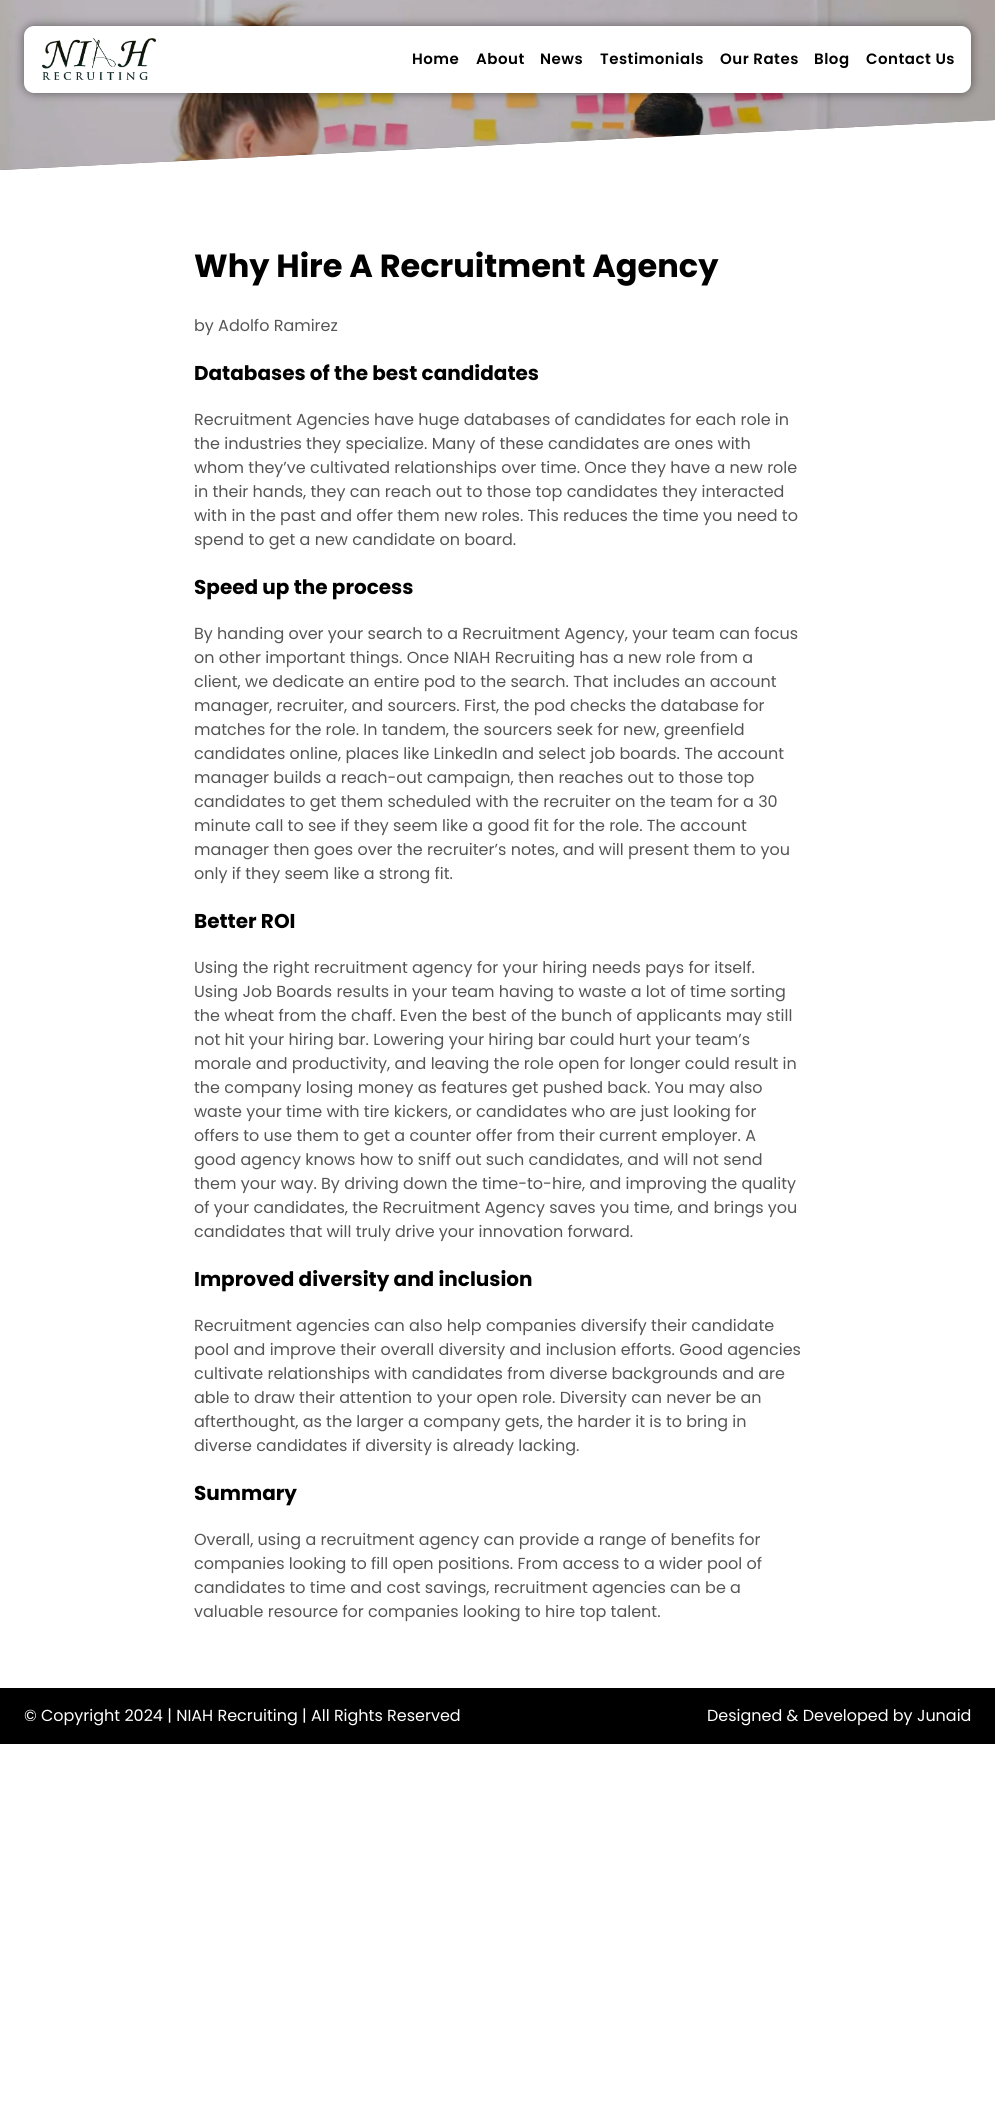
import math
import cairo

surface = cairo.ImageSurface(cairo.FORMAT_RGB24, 995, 2122)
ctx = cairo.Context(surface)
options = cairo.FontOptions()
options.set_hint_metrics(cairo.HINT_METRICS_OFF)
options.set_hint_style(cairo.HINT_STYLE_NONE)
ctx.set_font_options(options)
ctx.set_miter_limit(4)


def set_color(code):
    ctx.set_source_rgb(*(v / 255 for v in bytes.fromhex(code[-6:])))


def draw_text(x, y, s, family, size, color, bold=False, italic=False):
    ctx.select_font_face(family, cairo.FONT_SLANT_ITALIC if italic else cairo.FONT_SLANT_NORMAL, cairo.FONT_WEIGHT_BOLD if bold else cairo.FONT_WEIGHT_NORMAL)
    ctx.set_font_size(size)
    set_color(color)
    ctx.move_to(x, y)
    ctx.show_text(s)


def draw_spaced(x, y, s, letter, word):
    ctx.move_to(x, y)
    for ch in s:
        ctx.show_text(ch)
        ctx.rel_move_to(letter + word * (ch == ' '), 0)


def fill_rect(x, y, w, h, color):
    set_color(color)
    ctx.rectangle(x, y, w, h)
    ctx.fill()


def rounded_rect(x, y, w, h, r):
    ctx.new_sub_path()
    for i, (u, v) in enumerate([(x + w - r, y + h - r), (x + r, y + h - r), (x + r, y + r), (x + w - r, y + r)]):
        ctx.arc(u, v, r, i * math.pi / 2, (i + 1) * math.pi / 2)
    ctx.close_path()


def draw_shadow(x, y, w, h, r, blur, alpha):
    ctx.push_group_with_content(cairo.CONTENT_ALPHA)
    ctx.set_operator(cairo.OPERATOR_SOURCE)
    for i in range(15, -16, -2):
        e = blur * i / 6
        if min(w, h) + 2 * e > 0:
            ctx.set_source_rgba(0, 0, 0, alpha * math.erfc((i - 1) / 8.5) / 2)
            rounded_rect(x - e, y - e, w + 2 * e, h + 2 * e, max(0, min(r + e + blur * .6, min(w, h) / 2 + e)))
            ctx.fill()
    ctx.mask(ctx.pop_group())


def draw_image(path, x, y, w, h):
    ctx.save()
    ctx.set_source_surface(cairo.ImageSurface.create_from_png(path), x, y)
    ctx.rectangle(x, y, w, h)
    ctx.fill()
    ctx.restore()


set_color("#ffffff")
ctx.paint()
set_color("#736f6d")
ctx.new_path()
ctx.move_to(0, -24)
ctx.line_to(0, 170)
ctx.line_to(995, 120)
ctx.line_to(995, -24)
ctx.close_path()
ctx.fill()
draw_image("assets/img1.png", 0, 0, 995, 170)
set_color("#000000")
draw_shadow(24, 26, 947, 67, 10, 5, 0.5)
set_color("#ffffff")
rounded_rect(24, 26, 947, 67, 10)
ctx.fill()
draw_image("assets/img2.png", 42, 38, 114, 42)
ctx.select_font_face("Poppins SemiBold")
ctx.set_font_size(15)
set_color("#000000")
draw_spaced(412, 64, "Home", 0.5, 0)
draw_spaced(476, 64, "About", 0.5, 0)
draw_spaced(540, 64, "News", 0.5, 0)
draw_spaced(600, 64, "Testimonials", 0.5, 0)
draw_spaced(720, 64, "Our Rates", 0.5, 0)
draw_spaced(814, 64, "Blog", 0.5, 0)
draw_spaced(866, 64, "Contact Us", 0.5, 0)
draw_text(194, 277, "Why Hire A Recruitment Agency", "Poppins", 32, "#000000", bold=True)
draw_text(194, 331, "by Adolfo Ramirez", "Poppins", 16, "#555555")
draw_text(194, 380, "Databases of the best candidates", "Poppins", 20, "#000000", bold=True)
draw_text(194, 425, "Recruitment Agencies have huge databases of candidates for each role in", "Poppins", 16, "#555555")
draw_text(194, 449, "the industries they specialize. Many of these candidates are ones with", "Poppins", 16, "#555555")
draw_text(194, 473, "whom they’ve cultivated relationships over time. Once they have a new role", "Poppins", 16, "#555555")
draw_text(194, 497, "in their hands, they can reach out to those top candidates they interacted", "Poppins", 16, "#555555")
draw_text(194, 521, "with in the past and offer them new roles. This reduces the time you need to", "Poppins", 16, "#555555")
draw_text(194, 545, "spend to get a new candidate on board.", "Poppins", 16, "#555555")
draw_text(194, 594, "Speed up the process", "Poppins", 20, "#000000", bold=True)
draw_text(194, 639, "By handing over your search to a Recruitment Agency, your team can focus", "Poppins", 16, "#555555")
draw_text(194, 663, "on other important things. Once NIAH Recruiting has a new role from a", "Poppins", 16, "#555555")
draw_text(194, 687, "client, we dedicate an entire pod to the search. That includes an account", "Poppins", 16, "#555555")
draw_text(194, 711, "manager, recruiter, and sourcers. First, the pod checks the database for", "Poppins", 16, "#555555")
draw_text(194, 735, "matches for the role. In tandem, the sourcers seek for new, greenfield", "Poppins", 16, "#555555")
draw_text(194, 759, "candidates online, places like LinkedIn and select job boards. The account", "Poppins", 16, "#555555")
draw_text(194, 783, "manager builds a reach-out campaign, then reaches out to those top", "Poppins", 16, "#555555")
draw_text(194, 807, "candidates to get them scheduled with the recruiter on the team for a 30", "Poppins", 16, "#555555")
draw_text(194, 831, "minute call to see if they seem like a good fit for the role. The account", "Poppins", 16, "#555555")
draw_text(194, 855, "manager then goes over the recruiter’s notes, and will present them to you", "Poppins", 16, "#555555")
draw_text(194, 879, "only if they seem like a strong fit.", "Poppins", 16, "#555555")
draw_text(194, 928, "Better ROI", "Poppins", 20, "#000000", bold=True)
draw_text(194, 973, "Using the right recruitment agency for your hiring needs pays for itself.", "Poppins", 16, "#555555")
draw_text(194, 997, "Using Job Boards results in your team having to waste a lot of time sorting", "Poppins", 16, "#555555")
draw_text(194, 1021, "the wheat from the chaff. Even the best of the bunch of applicants may still", "Poppins", 16, "#555555")
draw_text(194, 1045, "not hit your hiring bar. Lowering your hiring bar could hurt your team’s", "Poppins", 16, "#555555")
draw_text(194, 1069, "morale and productivity, and leaving the role open for longer could result in", "Poppins", 16, "#555555")
draw_text(194, 1093, "the company losing money as features get pushed back. You may also", "Poppins", 16, "#555555")
draw_text(194, 1117, "waste your time with tire kickers, or candidates who are just looking for", "Poppins", 16, "#555555")
draw_text(194, 1141, "offers to use them to get a counter offer from their current employer. A", "Poppins", 16, "#555555")
draw_text(194, 1165, "good agency knows how to sniff out such candidates, and will not send", "Poppins", 16, "#555555")
draw_text(194, 1189, "them your way. By driving down the time-to-hire, and improving the quality", "Poppins", 16, "#555555")
draw_text(194, 1213, "of your candidates, the Recruitment Agency saves you time, and brings you", "Poppins", 16, "#555555")
draw_text(194, 1237, "candidates that will truly drive your innovation forward.", "Poppins", 16, "#555555")
draw_text(194, 1286, "Improved diversity and inclusion", "Poppins", 20, "#000000", bold=True)
draw_text(194, 1331, "Recruitment agencies can also help companies diversify their candidate", "Poppins", 16, "#555555")
draw_text(194, 1355, "pool and improve their overall diversity and inclusion efforts. Good agencies", "Poppins", 16, "#555555")
draw_text(194, 1379, "cultivate relationships with candidates from diverse backgrounds and are", "Poppins", 16, "#555555")
draw_text(194, 1403, "able to draw their attention to your open role. Diversity can never be an", "Poppins", 16, "#555555")
draw_text(194, 1427, "afterthought, as the larger a company gets, the harder it is to bring in", "Poppins", 16, "#555555")
draw_text(194, 1451, "diverse candidates if diversity is already lacking.", "Poppins", 16, "#555555")
draw_text(194, 1500, "Summary", "Poppins", 20, "#000000", bold=True)
draw_text(194, 1545, "Overall, using a recruitment agency can provide a range of benefits for", "Poppins", 16, "#555555")
draw_text(194, 1569, "companies looking to fill open positions. From access to a wider pool of", "Poppins", 16, "#555555")
draw_text(194, 1593, "candidates to time and cost savings, recruitment agencies can be a", "Poppins", 16, "#555555")
draw_text(194, 1617, "valuable resource for companies looking to hire top talent.", "Poppins", 16, "#555555")
fill_rect(0, 1688, 995, 56, "#000000")
draw_text(24, 1721, "© Copyright 2024 | NIAH Recruiting | All Rights Reserved", "Poppins", 16, "#ffffff")
draw_text(707, 1721, "Designed & Developed by Junaid", "Poppins", 16, "#ffffff")
surface.write_to_png("output.png")
